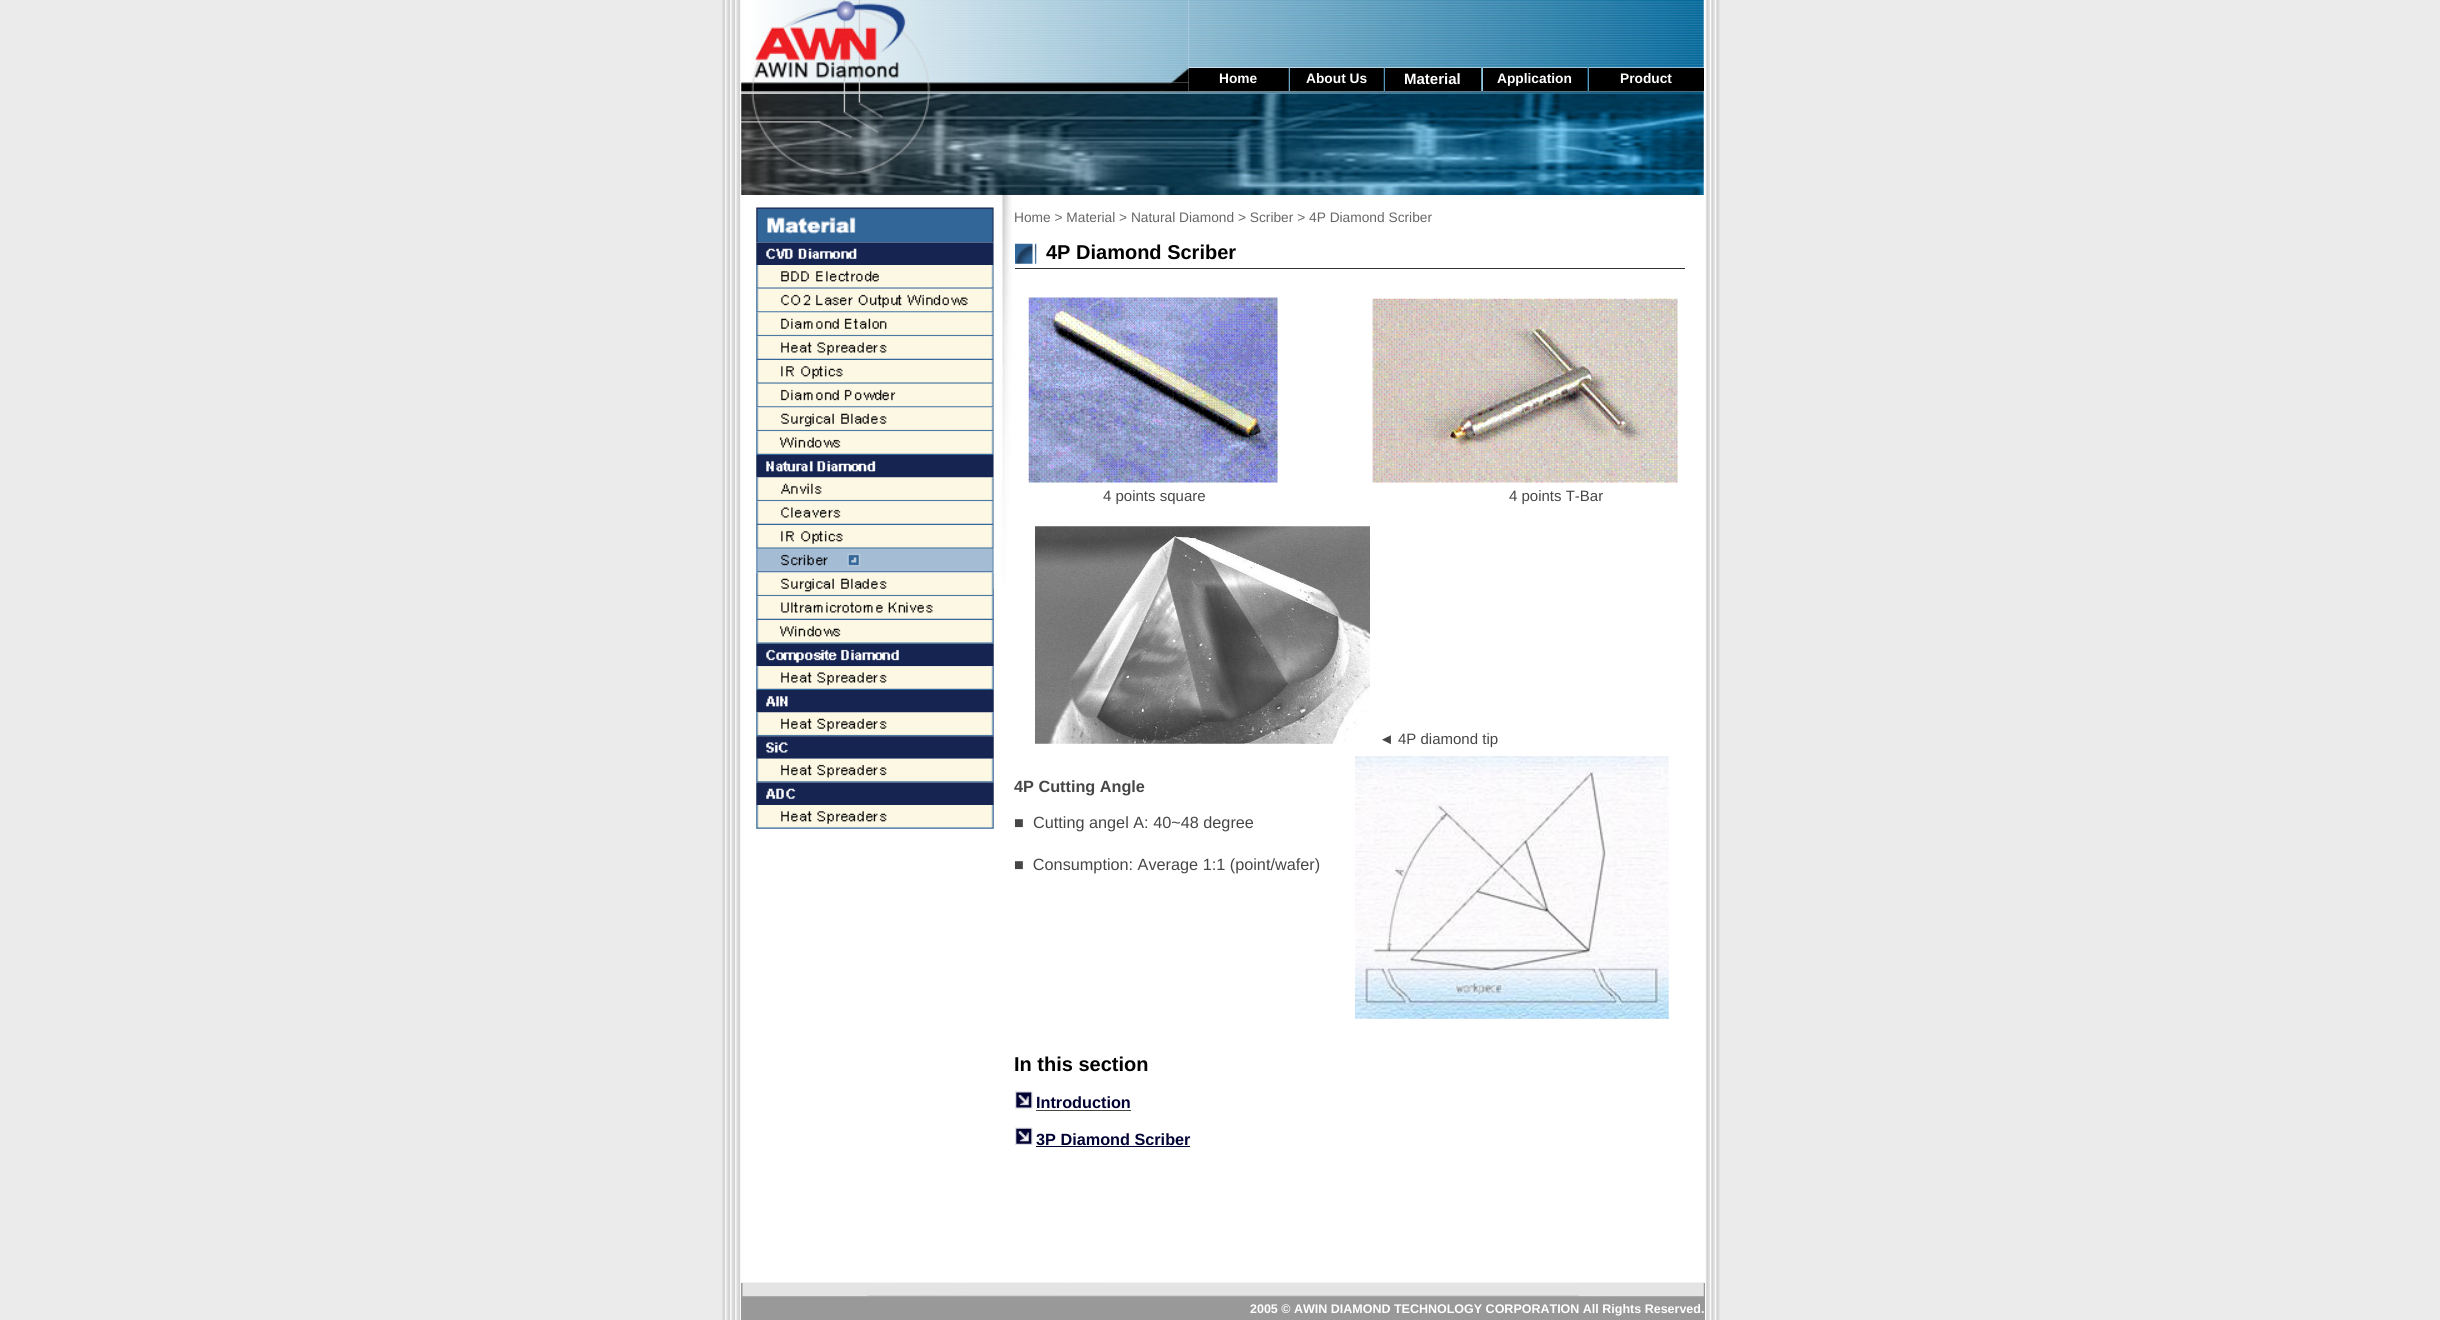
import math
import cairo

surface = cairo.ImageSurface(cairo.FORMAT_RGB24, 2440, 1320)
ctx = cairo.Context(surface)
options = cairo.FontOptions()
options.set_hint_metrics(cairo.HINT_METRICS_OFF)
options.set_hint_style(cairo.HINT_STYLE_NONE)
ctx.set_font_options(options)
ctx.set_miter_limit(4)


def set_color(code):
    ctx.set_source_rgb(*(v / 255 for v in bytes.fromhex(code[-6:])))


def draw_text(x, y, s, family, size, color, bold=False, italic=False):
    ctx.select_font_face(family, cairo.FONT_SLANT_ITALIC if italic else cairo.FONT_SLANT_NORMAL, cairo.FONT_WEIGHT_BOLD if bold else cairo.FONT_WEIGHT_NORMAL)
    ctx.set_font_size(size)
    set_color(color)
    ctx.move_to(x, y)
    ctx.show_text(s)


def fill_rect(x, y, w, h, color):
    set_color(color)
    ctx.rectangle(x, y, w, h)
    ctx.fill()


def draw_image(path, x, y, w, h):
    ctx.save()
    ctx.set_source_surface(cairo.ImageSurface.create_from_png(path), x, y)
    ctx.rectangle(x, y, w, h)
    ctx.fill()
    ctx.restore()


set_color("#ebebeb")
ctx.paint()
draw_image("assets/img1.png", 722, 0, 19, 1320)
fill_rect(741, 0, 964, 1283, "#ffffff")
draw_image("assets/img2.png", 751, 0, 438, 83)
draw_image("assets/img3.png", 1188, 0, 516, 68)
fill_rect(1189, 68, 100, 23, "#000000")
draw_text(1219, 83, "Home", "Liberation Sans", 13.75, "#ffffff", bold=True)
draw_image("assets/img4.png", 1288, 67, 2, 25)
fill_rect(1290, 68, 94, 23, "#000000")
draw_text(1306, 83, "About Us", "Liberation Sans", 13.75, "#ffffff", bold=True)
draw_image("assets/img5.png", 1383, 67, 2, 25)
fill_rect(1385, 68, 96, 23, "#000000")
draw_text(1404, 84, "Material", "Liberation Sans", 15, "#ffffff", bold=True)
draw_image("assets/img6.png", 1481, 67, 2, 25)
fill_rect(1483, 68, 105, 23, "#000000")
draw_text(1497, 83, "Application", "Liberation Sans", 13.75, "#ffffff", bold=True)
draw_image("assets/img7.png", 1587, 67, 2, 25)
fill_rect(1589, 68, 115, 23, "#000000")
draw_text(1620, 83, "Product", "Liberation Sans", 13.75, "#ffffff", bold=True)
draw_image("assets/img8.png", 741, 82, 448, 10)
draw_image("assets/img9.png", 741, 91, 963, 104)
draw_image("assets/img10.png", 756, 207, 238, 36)
draw_image("assets/img11.png", 756, 242, 238, 23)
draw_image("assets/img12.png", 756, 265, 238, 24)
draw_image("assets/img13.png", 756, 288, 238, 25)
draw_image("assets/img14.png", 756, 312, 238, 25)
draw_image("assets/img15.png", 756, 336, 238, 24)
draw_image("assets/img16.png", 756, 360, 238, 24)
draw_image("assets/img17.png", 756, 383, 238, 25)
draw_image("assets/img18.png", 756, 407, 238, 25)
draw_image("assets/img19.png", 756, 431, 238, 24)
draw_image("assets/img20.png", 756, 455, 238, 23)
draw_image("assets/img21.png", 756, 477, 238, 25)
draw_image("assets/img22.png", 756, 501, 238, 24)
draw_image("assets/img16.png", 756, 525, 238, 24)
draw_image("assets/img23.png", 756, 548, 238, 25)
draw_image("assets/img24.png", 756, 572, 238, 25)
draw_image("assets/img25.png", 756, 596, 238, 24)
draw_image("assets/img26.png", 756, 620, 238, 24)
draw_image("assets/img27.png", 756, 643, 238, 24)
draw_image("assets/img28.png", 756, 666, 238, 24)
draw_image("assets/img29.png", 756, 690, 238, 23)
draw_image("assets/img30.png", 756, 712, 238, 25)
draw_image("assets/img31.png", 756, 736, 238, 23)
draw_image("assets/img32.png", 756, 758, 238, 25)
draw_image("assets/img33.png", 756, 782, 238, 23)
draw_image("assets/img34.png", 756, 805, 238, 24)
draw_image("assets/img35.png", 1001, 195, 11, 10)
draw_image("assets/img36.png", 993, 205, 19, 384)
draw_text(1014, 222, "Home > Material > Natural Diamond > Scriber > 4P Diamond Scriber", "Liberation Sans", 13.75, "#666666")
draw_image("assets/img37.png", 1015, 243, 22, 21)
draw_text(1046, 259, "4P Diamond Scriber", "Liberation Sans", 20, "#000000", bold=True)
fill_rect(1015, 268, 670, 1, "#333333")
draw_image("assets/img38.png", 1028, 297, 250, 186)
draw_image("assets/img39.png", 1372, 298, 306, 185)
draw_text(1103, 501, "4 points square", "Liberation Sans", 15, "#464646")
draw_text(1509, 501, "4 points T-Bar", "Liberation Sans", 15, "#464646")
draw_image("assets/img40.png", 1035, 526, 335, 218)
draw_text(1379, 744, "◄", "Liberation Sans", 15, "#464646", bold=True)
draw_text(1398, 744, "4P diamond tip", "Liberation Sans", 15, "#464646")
draw_text(1014, 792, "4P Cutting Angle", "Liberation Sans", 16.25, "#464646", bold=True)
draw_text(1014, 828, "■", "Liberation Sans", 16.25, "#464646")
draw_text(1033, 828, "Cutting angel A: 40~48 degree", "Liberation Sans", 16.25, "#464646")
draw_text(1014, 870, "■  Consumption: Average 1:1 (point/wafer)", "Liberation Sans", 16.25, "#464646")
draw_image("assets/img41.png", 1355, 756, 314, 263)
draw_text(1014, 1071, "In this section", "Liberation Sans", 20, "#000000", bold=True)
draw_image("assets/img42.png", 1015, 1091, 18, 18)
draw_text(1036, 1108, "Introduction", "Liberation Sans", 16.25, "#000033", bold=True)
fill_rect(1036, 1110, 95, 1, "#464646")
draw_image("assets/img43.png", 1015, 1127, 18, 18)
draw_text(1036, 1145, "3P Diamond Scriber", "Liberation Sans", 16.25, "#000033", bold=True)
fill_rect(1036, 1146, 154, 1, "#000033")
fill_rect(741, 1283, 964, 37, "#999999")
draw_image("assets/img44.png", 742, 1282, 962, 15)
draw_text(1250, 1313, "2005 © AWIN DIAMOND TECHNOLOGY CORPORATION All Rights Reserved.", "Liberation Sans", 12.5, "#ffffff", bold=True)
draw_image("assets/img45.png", 1705, 0, 15, 1320)
surface.write_to_png("output.png")
